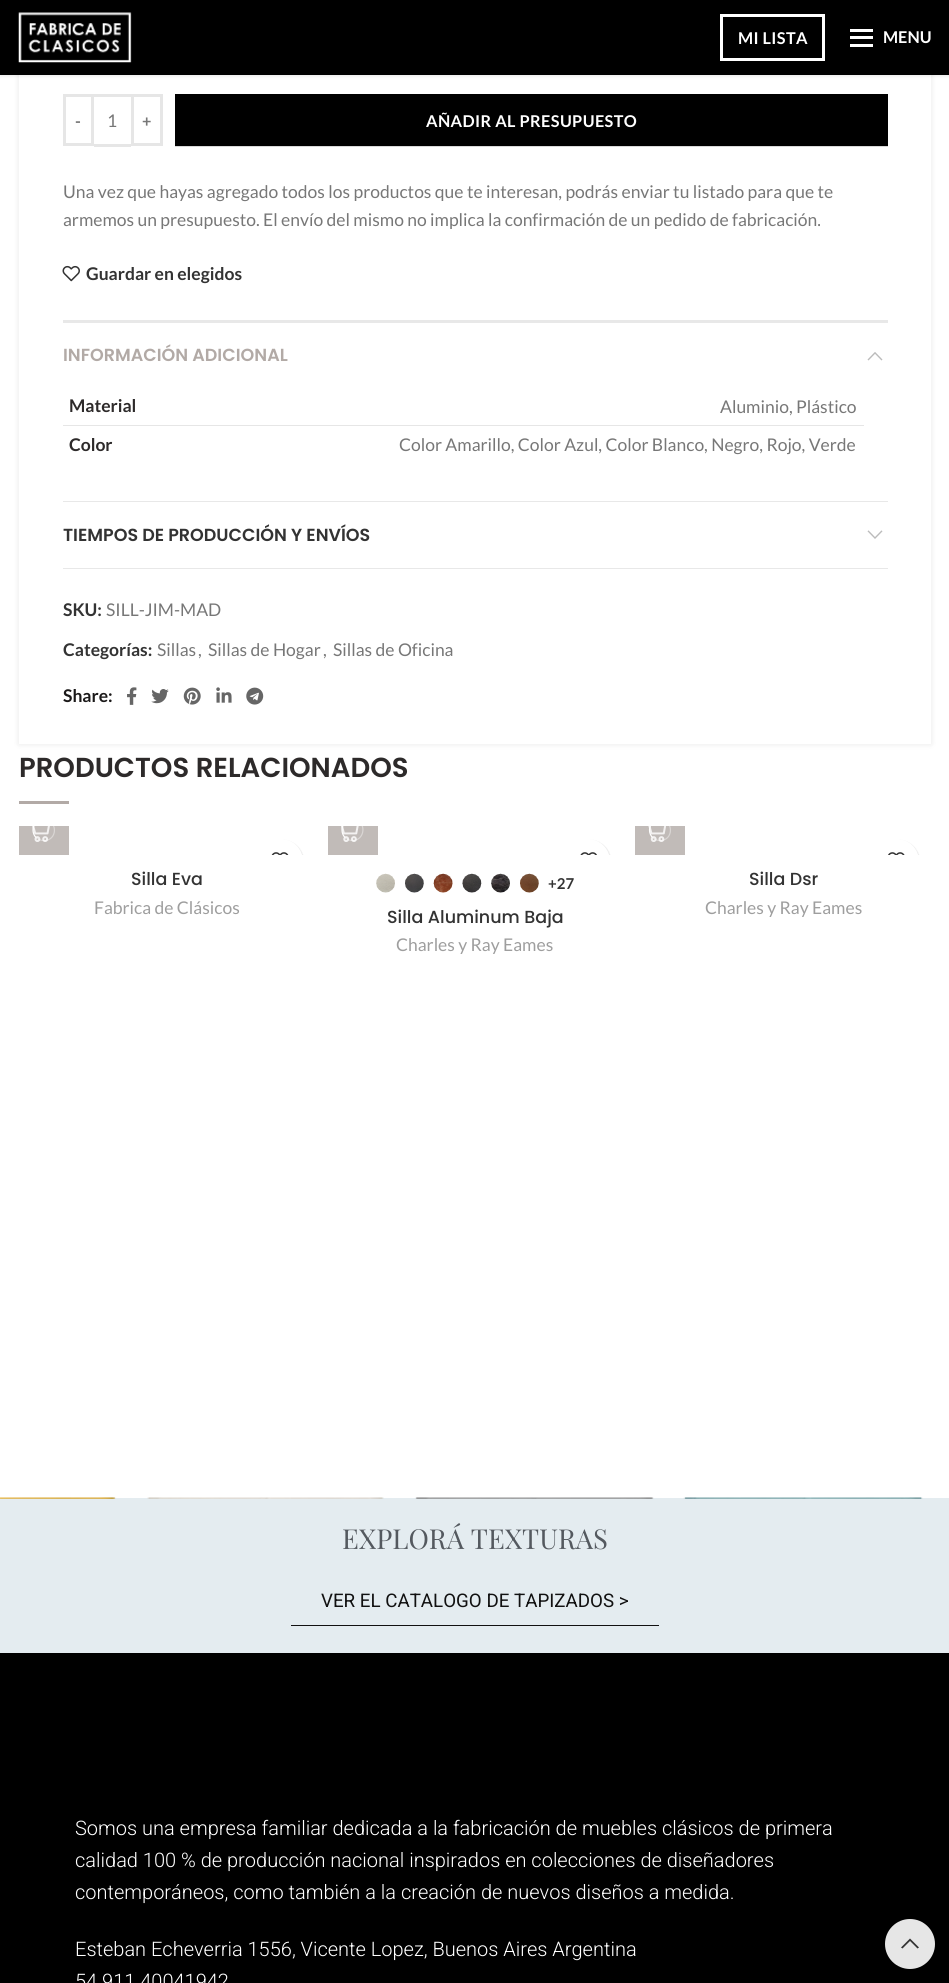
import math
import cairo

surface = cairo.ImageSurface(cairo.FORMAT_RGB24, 949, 1983)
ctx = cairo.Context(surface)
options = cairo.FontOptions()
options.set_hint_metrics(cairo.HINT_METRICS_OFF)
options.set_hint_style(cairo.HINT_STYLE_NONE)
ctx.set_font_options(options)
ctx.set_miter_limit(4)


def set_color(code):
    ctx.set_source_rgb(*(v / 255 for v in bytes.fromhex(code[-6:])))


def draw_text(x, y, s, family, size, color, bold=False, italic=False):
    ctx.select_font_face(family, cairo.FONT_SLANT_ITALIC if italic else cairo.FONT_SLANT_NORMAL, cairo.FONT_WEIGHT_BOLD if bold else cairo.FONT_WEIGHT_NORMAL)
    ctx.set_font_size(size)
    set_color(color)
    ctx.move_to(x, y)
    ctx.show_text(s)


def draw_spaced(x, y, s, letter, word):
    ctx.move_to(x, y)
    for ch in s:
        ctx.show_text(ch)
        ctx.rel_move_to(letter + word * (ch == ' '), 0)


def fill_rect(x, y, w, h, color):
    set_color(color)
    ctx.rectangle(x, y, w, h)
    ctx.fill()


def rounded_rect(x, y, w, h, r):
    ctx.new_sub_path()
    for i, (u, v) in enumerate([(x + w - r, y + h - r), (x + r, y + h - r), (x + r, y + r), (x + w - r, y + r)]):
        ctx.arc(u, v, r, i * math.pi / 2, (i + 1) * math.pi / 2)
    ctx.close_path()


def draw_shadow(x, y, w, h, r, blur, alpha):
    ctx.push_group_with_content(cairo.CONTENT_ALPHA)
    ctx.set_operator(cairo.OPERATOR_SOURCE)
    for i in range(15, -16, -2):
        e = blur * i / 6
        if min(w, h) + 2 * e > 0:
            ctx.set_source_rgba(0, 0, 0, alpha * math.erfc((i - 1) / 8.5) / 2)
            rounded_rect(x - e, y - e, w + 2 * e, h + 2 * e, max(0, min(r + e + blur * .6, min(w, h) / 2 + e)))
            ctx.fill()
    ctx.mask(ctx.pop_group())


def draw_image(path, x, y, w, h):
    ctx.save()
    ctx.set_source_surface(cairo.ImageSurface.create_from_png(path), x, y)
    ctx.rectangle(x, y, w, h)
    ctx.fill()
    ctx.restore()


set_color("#ffffff")
ctx.paint()
set_color("#000000")
draw_shadow(19, -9, 912, 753, 0, 3, 0.1)
fill_rect(19, 75, 912, 669, "#ffffff")
set_color("#000000")
draw_shadow(0, 1, 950, 75, 0, 2, 0.1)
fill_rect(0, 0, 949, 75, "#000000")
draw_image("assets/img1.png", 18, 12, 114, 51)
ctx.rectangle(721.5, 15.5, 102, 44)
set_color("#ffffff")
ctx.set_line_width(3)
ctx.stroke()
ctx.select_font_face("Lato", cairo.FONT_SLANT_NORMAL, cairo.FONT_WEIGHT_BOLD)
ctx.set_font_size(16.25)
draw_spaced(738, 44, "MI LISTA", 0.4, 0)
fill_rect(850, 36, 23, 3, "#ffffff")
fill_rect(850, 29, 23, 3, "#ffffff")
fill_rect(850, 44, 23, 3, "#ffffff")
draw_text(883, 43, "MENU", "Lato", 16.25, "#ffffff", bold=True)
fill_rect(175, 146, 713, 1, "#d9d9d9")
ctx.rectangle(64.5, 95.5, 28, 49)
set_color("#e6e6e6")
ctx.stroke()
set_color("#777777")
draw_spaced(75, 127, "-", 0.4, 0)
fill_rect(94, 94, 37, 3, "#e6e6e6")
fill_rect(94, 144, 37, 3, "#e6e6e6")
draw_text(107, 127, "1", "Lato", 17.5, "#777777")
ctx.rectangle(132.5, 95.5, 29, 49)
set_color("#e6e6e6")
ctx.stroke()
ctx.select_font_face("Lato", cairo.FONT_SLANT_NORMAL, cairo.FONT_WEIGHT_BOLD)
ctx.set_font_size(16.25)
set_color("#777777")
draw_spaced(142, 127, "+", 0.4, 0)
fill_rect(175, 94, 713, 52, "#000000")
set_color("#ffffff")
draw_spaced(426, 127, "AÑADIR AL PRESUPUESTO", 0.4, 0)
draw_text(63, 198, "Una vez que hayas agregado todos los productos que te interesan, podrás enviar tu listado para que te", "Lato", 17.5, "#777777")
draw_text(63, 226, "armemos un presupuesto. El envío del mismo no implica la confirmación de un pedido de fabricación.", "Lato", 17.5, "#777777")
draw_image("assets/img2.png", 62, 265, 18, 17)
draw_text(86, 280, "Guardar en elegidos", "Lato", 17.5, "#333333", bold=True)
fill_rect(63, 320, 825, 3, "#e8e8e8")
fill_rect(63, 501, 825, 1, "#e8e8e8")
draw_text(63, 361, "INFORMACIÓN ADICIONAL", "Poppins SemiBold", 17.5, "#b2aaa6")
draw_image("assets/img3.png", 867, 352, 16, 9)
draw_text(69, 412, "Material", "Lato", 17.5, "#2d2a2a", bold=True)
fill_rect(63, 425, 801, 1, "#e6e6e6")
draw_text(720, 413, "Aluminio, Plástico", "Lato", 17.5, "#777777")
draw_text(69, 451, "Color", "Lato", 17.5, "#2d2a2a", bold=True)
draw_text(399, 451, "Color Amarillo, Color Azul, Color Blanco, Negro, Rojo, Verde", "Lato", 17.5, "#777777")
fill_rect(63, 568, 825, 1, "#e8e8e8")
draw_text(63, 541, "TIEMPOS DE PRODUCCIÓN Y ENVÍOS", "Poppins SemiBold", 17.5, "#333333")
draw_image("assets/img4.png", 867, 530, 16, 9)
draw_text(63, 616, "SKU:", "Lato", 17.5, "#333333", bold=True)
draw_text(106, 616, "SILL-JIM-MAD", "Lato", 17.5, "#777777")
draw_text(63, 656, "Categorías:", "Lato", 17.5, "#333333", bold=True)
draw_text(157, 656, "Sillas", "Lato", 17.5, "#777777")
draw_text(198, 656, ",", "Lato", 17.5, "#777777")
draw_text(208, 656, "Sillas de Hogar", "Lato", 17.5, "#777777")
draw_text(323, 656, ",", "Lato", 17.5, "#777777")
draw_text(333, 656, "Sillas de Oficina", "Lato", 17.5, "#777777")
draw_text(63, 702, "Share:", "Lato", 17.5, "#1b1919", bold=True)
draw_image("assets/img5.png", 127, 687, 10, 18)
draw_image("assets/img6.png", 151, 689, 18, 15)
draw_image("assets/img7.png", 183, 687, 18, 18)
draw_image("assets/img8.png", 216, 687, 16, 16)
draw_image("assets/img9.png", 246, 687, 18, 18)
draw_text(19, 777, "PRODUCTOS RELACIONADOS", "Poppins SemiBold", 27.5, "#2d2a2a")
fill_rect(19, 801, 50, 3, "#b2aaa6")
fill_rect(19, 826, 50, 29, "#c1bbb8")
draw_image("assets/img10.png", 32, 826, 18, 16)
ctx.save()
ctx.rectangle(19, 826, 50, 29)
ctx.clip()
ctx.new_path()
ctx.move_to(36, 822.5)
ctx.curve_to(38, 820.5, 41, 819.5, 44, 819.5)
ctx.curve_to(56.5, 819.5, 58.5, 838, 46, 840.5)
ctx.curve_to(42.5, 841, 38.5, 840, 36, 837.5)
ctx.set_source_rgba(1, 1, 1, 0.4)
ctx.set_line_width(1.2)
ctx.stroke()
ctx.new_path()
ctx.move_to(36, 837.5)
ctx.curve_to(32, 833.5, 32, 826.5, 36, 822.5)
set_color("#ffffff")
ctx.stroke()
ctx.restore()
ctx.save()
ctx.rectangle(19, 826, 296, 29)
ctx.clip()
set_color("#000000")
draw_shadow(260, 840, 44, 44, 22, 0.5, 0.1)
ctx.restore()
set_color("#ffffff")
ctx.new_path()
ctx.move_to(281, 839)
ctx.curve_to(293, 839, 303, 849, 303, 861)
ctx.line_to(303, 855)
ctx.line_to(259, 855)
ctx.line_to(259, 861)
ctx.curve_to(259, 849, 269, 839, 281, 839)
ctx.close_path()
ctx.fill()
draw_image("assets/img11.png", 271, 852, 18, 3)
draw_text(131, 885, "Silla Eva", "Poppins Medium", 17.5, "#333333")
draw_text(94, 914, "Fabrica de Clásicos", "Lato", 17.5, "#9e9e9e")
fill_rect(328, 826, 50, 29, "#c1bbb8")
draw_image("assets/img12.png", 341, 826, 18, 16)
ctx.save()
ctx.rectangle(328, 826, 50, 29)
ctx.clip()
ctx.new_path()
ctx.move_to(345, 822.5)
ctx.curve_to(347.5, 820, 351, 819, 354.5, 819.5)
ctx.curve_to(367, 822, 365, 840.5, 352.5, 840.5)
ctx.curve_to(349.5, 840.5, 347, 839.5, 345, 837.5)
ctx.set_source_rgba(1, 1, 1, 0.4)
ctx.set_line_width(1.2)
ctx.stroke()
ctx.new_path()
ctx.move_to(345, 837.5)
ctx.curve_to(341, 833.5, 341, 826.5, 345, 822.5)
set_color("#ffffff")
ctx.stroke()
ctx.restore()
ctx.save()
ctx.rectangle(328, 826, 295, 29)
ctx.clip()
set_color("#000000")
draw_shadow(568, 840, 43, 44, 21.5, 0.5, 0.1)
ctx.restore()
set_color("#ffffff")
ctx.new_path()
ctx.move_to(588, 839)
ctx.curve_to(600, 839, 610, 849, 610, 861)
ctx.line_to(610, 855)
ctx.line_to(566, 855)
ctx.line_to(566, 861)
ctx.curve_to(566, 849, 576, 839, 588, 839)
ctx.close_path()
ctx.fill()
draw_image("assets/img13.png", 580, 852, 17, 3)
ctx.save()
ctx.rectangle(328, 826, 295, 29)
ctx.clip()
ctx.new_path()
ctx.move_to(583, 865.5)
ctx.curve_to(580, 862.5, 580, 857.5, 583, 854.5)
set_color("#6d6d6d")
ctx.set_line_width(1.2)
ctx.stroke()
ctx.restore()
draw_image("assets/img14.png", 376, 873, 19, 20)
draw_image("assets/img15.png", 405, 873, 19, 20)
draw_image("assets/img16.png", 433, 873, 20, 20)
draw_image("assets/img17.png", 462, 873, 20, 20)
draw_image("assets/img18.png", 491, 873, 19, 20)
draw_image("assets/img19.png", 520, 873, 19, 20)
draw_text(548, 889, "+27", "Lato", 15, "#333333", bold=True)
draw_text(387, 923, "Silla Aluminum Baja", "Poppins Medium", 17.5, "#333333")
draw_text(396, 951, "Charles y Ray Eames", "Lato", 17.5, "#9e9e9e")
fill_rect(635, 826, 50, 29, "#c1bbb8")
draw_image("assets/img20.png", 648, 826, 18, 16)
ctx.save()
ctx.rectangle(635, 826, 50, 29)
ctx.clip()
ctx.new_path()
ctx.move_to(652.5, 822.5)
ctx.curve_to(654.5, 820.5, 657, 819.5, 660, 819.5)
ctx.curve_to(672.5, 819.5, 674.5, 838, 662, 840.5)
ctx.curve_to(658.5, 841, 655, 840, 652.5, 837.5)
ctx.set_source_rgba(1, 1, 1, 0.4)
ctx.set_line_width(1.2)
ctx.stroke()
ctx.new_path()
ctx.move_to(652.5, 837.5)
ctx.curve_to(648.5, 833.5, 648.5, 826.5, 652.5, 822.5)
set_color("#ffffff")
ctx.stroke()
ctx.restore()
ctx.save()
ctx.rectangle(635, 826, 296, 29)
ctx.clip()
set_color("#000000")
draw_shadow(876, 840, 44, 44, 22, 0.5, 0.1)
ctx.restore()
set_color("#ffffff")
ctx.new_path()
ctx.move_to(897, 839)
ctx.curve_to(909, 839, 919, 849, 919, 861)
ctx.line_to(919, 855)
ctx.line_to(875, 855)
ctx.line_to(875, 861)
ctx.curve_to(875, 849, 885, 839, 897, 839)
ctx.close_path()
ctx.fill()
draw_image("assets/img21.png", 888, 852, 17, 3)
draw_text(749, 885, "Silla Dsr", "Poppins Medium", 17.5, "#333333")
draw_text(705, 914, "Charles y Ray Eames", "Lato", 17.5, "#9e9e9e")
fill_rect(0, 1498, 949, 155, "#e4ecf0")
draw_image("assets/img22.png", 0, 1497, 923, 2)
draw_text(342, 1549, "EXPLORÁ TEXTURAS", "Playfair Display", 27.5, "#54595f")
fill_rect(291, 1625, 368, 1, "#111111")
draw_text(321, 1607, "VER EL CATALOGO DE TAPIZADOS >", "Roboto", 18.75, "#111111")
fill_rect(0, 1653, 949, 330, "#000000")
draw_text(75, 1835, "Somos una empresa familiar dedicada a la fabricación de muebles clásicos de primera", "Roboto Light", 20, "#ffffff")
draw_text(75, 1867, "calidad 100 % de producción nacional inspirados en colecciones de diseñadores", "Roboto Light", 20, "#ffffff")
draw_text(75, 1899, "contemporáneos, como también a la creación de nuevos diseños a medida.", "Roboto Light", 20, "#ffffff")
draw_text(75, 1956, "Esteban Echeverria 1556, Vicente Lopez, Buenos Aires Argentina", "Roboto Light", 20, "#ffffff")
draw_text(75, 1988, "54 911 40041942", "Roboto Light", 20, "#ffffff")
set_color("#e6e6e6")
ctx.new_path()
ctx.arc(910, 1944, 25, 0, 2 * math.pi)
ctx.fill()
set_color("#333333")
ctx.new_path()
ctx.move_to(910, 1938.5)
ctx.line_to(919, 1947.5)
ctx.line_to(917.5, 1948.5)
ctx.line_to(910, 1941)
ctx.line_to(902.5, 1948.5)
ctx.line_to(901, 1947.5)
ctx.close_path()
ctx.fill()
surface.write_to_png("output.png")
